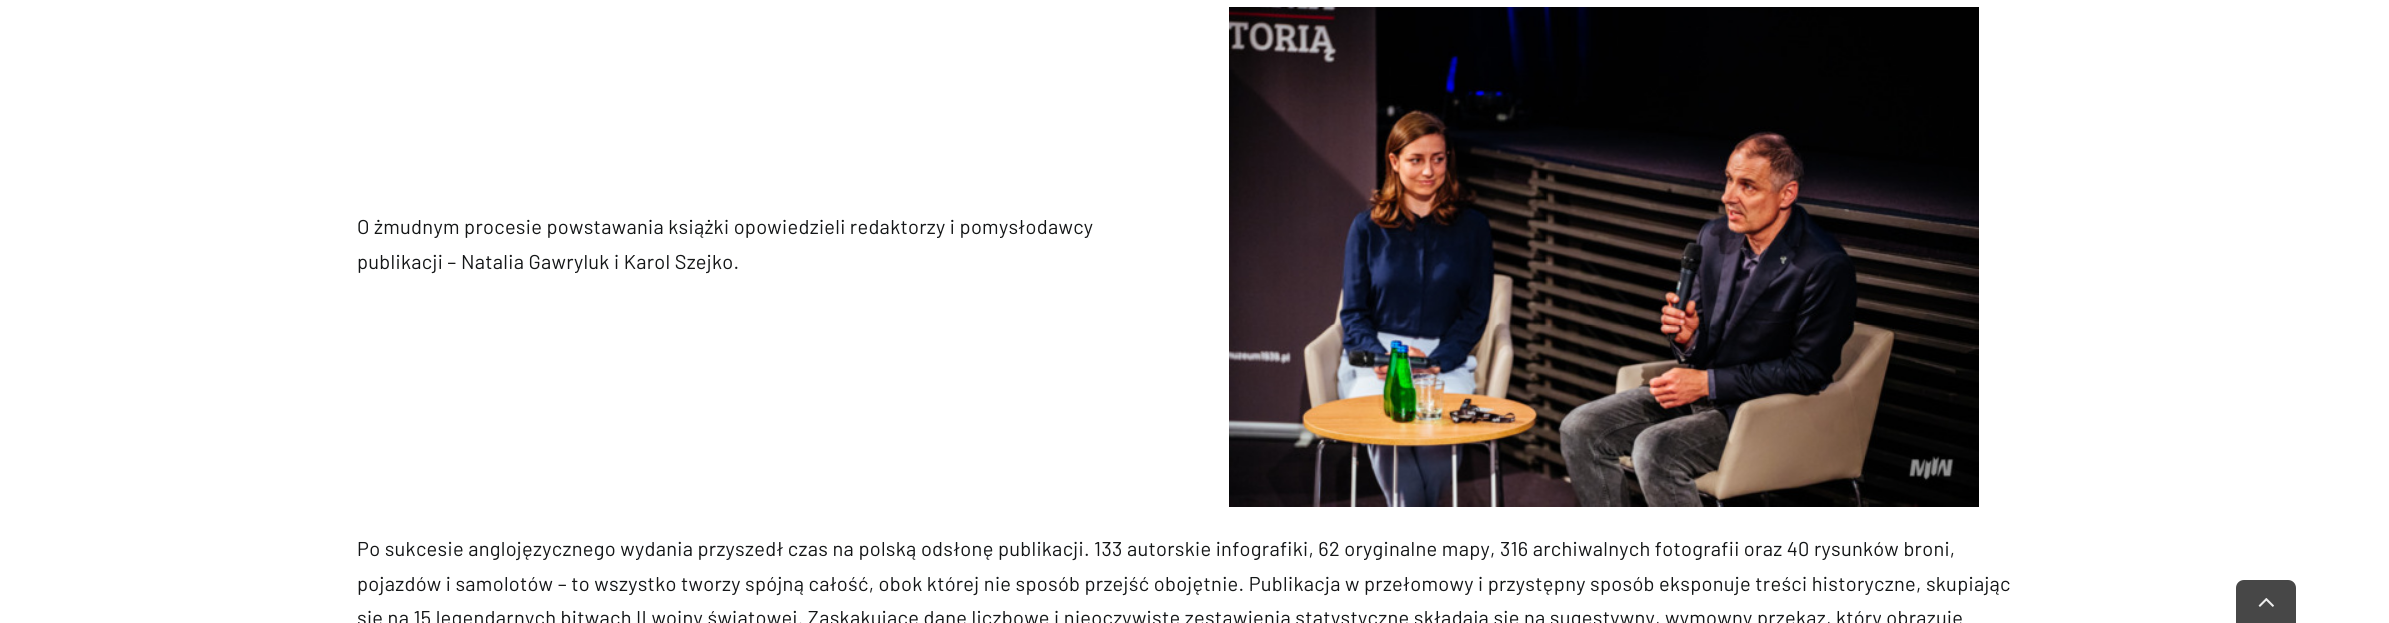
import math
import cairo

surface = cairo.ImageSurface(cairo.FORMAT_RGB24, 2389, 623)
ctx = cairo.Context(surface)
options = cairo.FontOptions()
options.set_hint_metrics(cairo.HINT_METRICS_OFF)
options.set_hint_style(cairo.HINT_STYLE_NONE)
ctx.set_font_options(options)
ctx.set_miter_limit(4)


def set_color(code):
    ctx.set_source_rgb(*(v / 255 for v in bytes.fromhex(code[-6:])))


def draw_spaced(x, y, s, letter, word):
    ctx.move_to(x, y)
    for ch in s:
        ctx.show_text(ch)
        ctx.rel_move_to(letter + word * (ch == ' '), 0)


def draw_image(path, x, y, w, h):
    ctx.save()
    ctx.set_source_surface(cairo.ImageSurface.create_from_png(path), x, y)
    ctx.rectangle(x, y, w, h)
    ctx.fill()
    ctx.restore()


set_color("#ffffff")
ctx.paint()
ctx.select_font_face("Barlow")
ctx.set_font_size(20)
set_color("#141617")
draw_spaced(357, 234, "O żmudnym procesie powstawania książki opowiedzieli redaktorzy i pomysłodawcy", 0.3, 0)
draw_spaced(357, 269, "publikacji – Natalia Gawryluk i Karol Szejko.", 0.3, 0)
draw_image("assets/img1.png", 1229, 7, 750, 500)
draw_spaced(357, 556, "Po sukcesie anglojęzycznego wydania przyszedł czas na polską odsłonę publikacji. 133 autorskie infografiki, 62 oryginalne mapy, 316 archiwalnych fotografii oraz 40 rysunków broni,", 0.3, 0)
draw_spaced(357, 591, "pojazdów i samolotów – to wszystko tworzy spójną całość, obok której nie sposób przejść obojętnie. Publikacja w przełomowy i przystępny sposób eksponuje treści historyczne, skupiając", 0.3, 0)
draw_spaced(357, 625, "się na 15 legendarnych bitwach II wojny światowej. Zaskakujące dane liczbowe i nieoczywiste zestawienia statystyczne składają się na sugestywny, wymowny przekaz, który obrazuje", 0.3, 0)
set_color("#474747")
ctx.new_path()
ctx.move_to(2244, 580)
ctx.line_to(2288, 580)
ctx.curve_to(2292.5, 580, 2296, 583.5, 2296, 588)
ctx.line_to(2296, 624)
ctx.line_to(2236, 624)
ctx.line_to(2236, 588)
ctx.curve_to(2236, 583.5, 2239.5, 580, 2244, 580)
ctx.close_path()
ctx.fill()
draw_image("assets/img2.png", 2258, 598, 16, 9)
surface.write_to_png("output.png")
